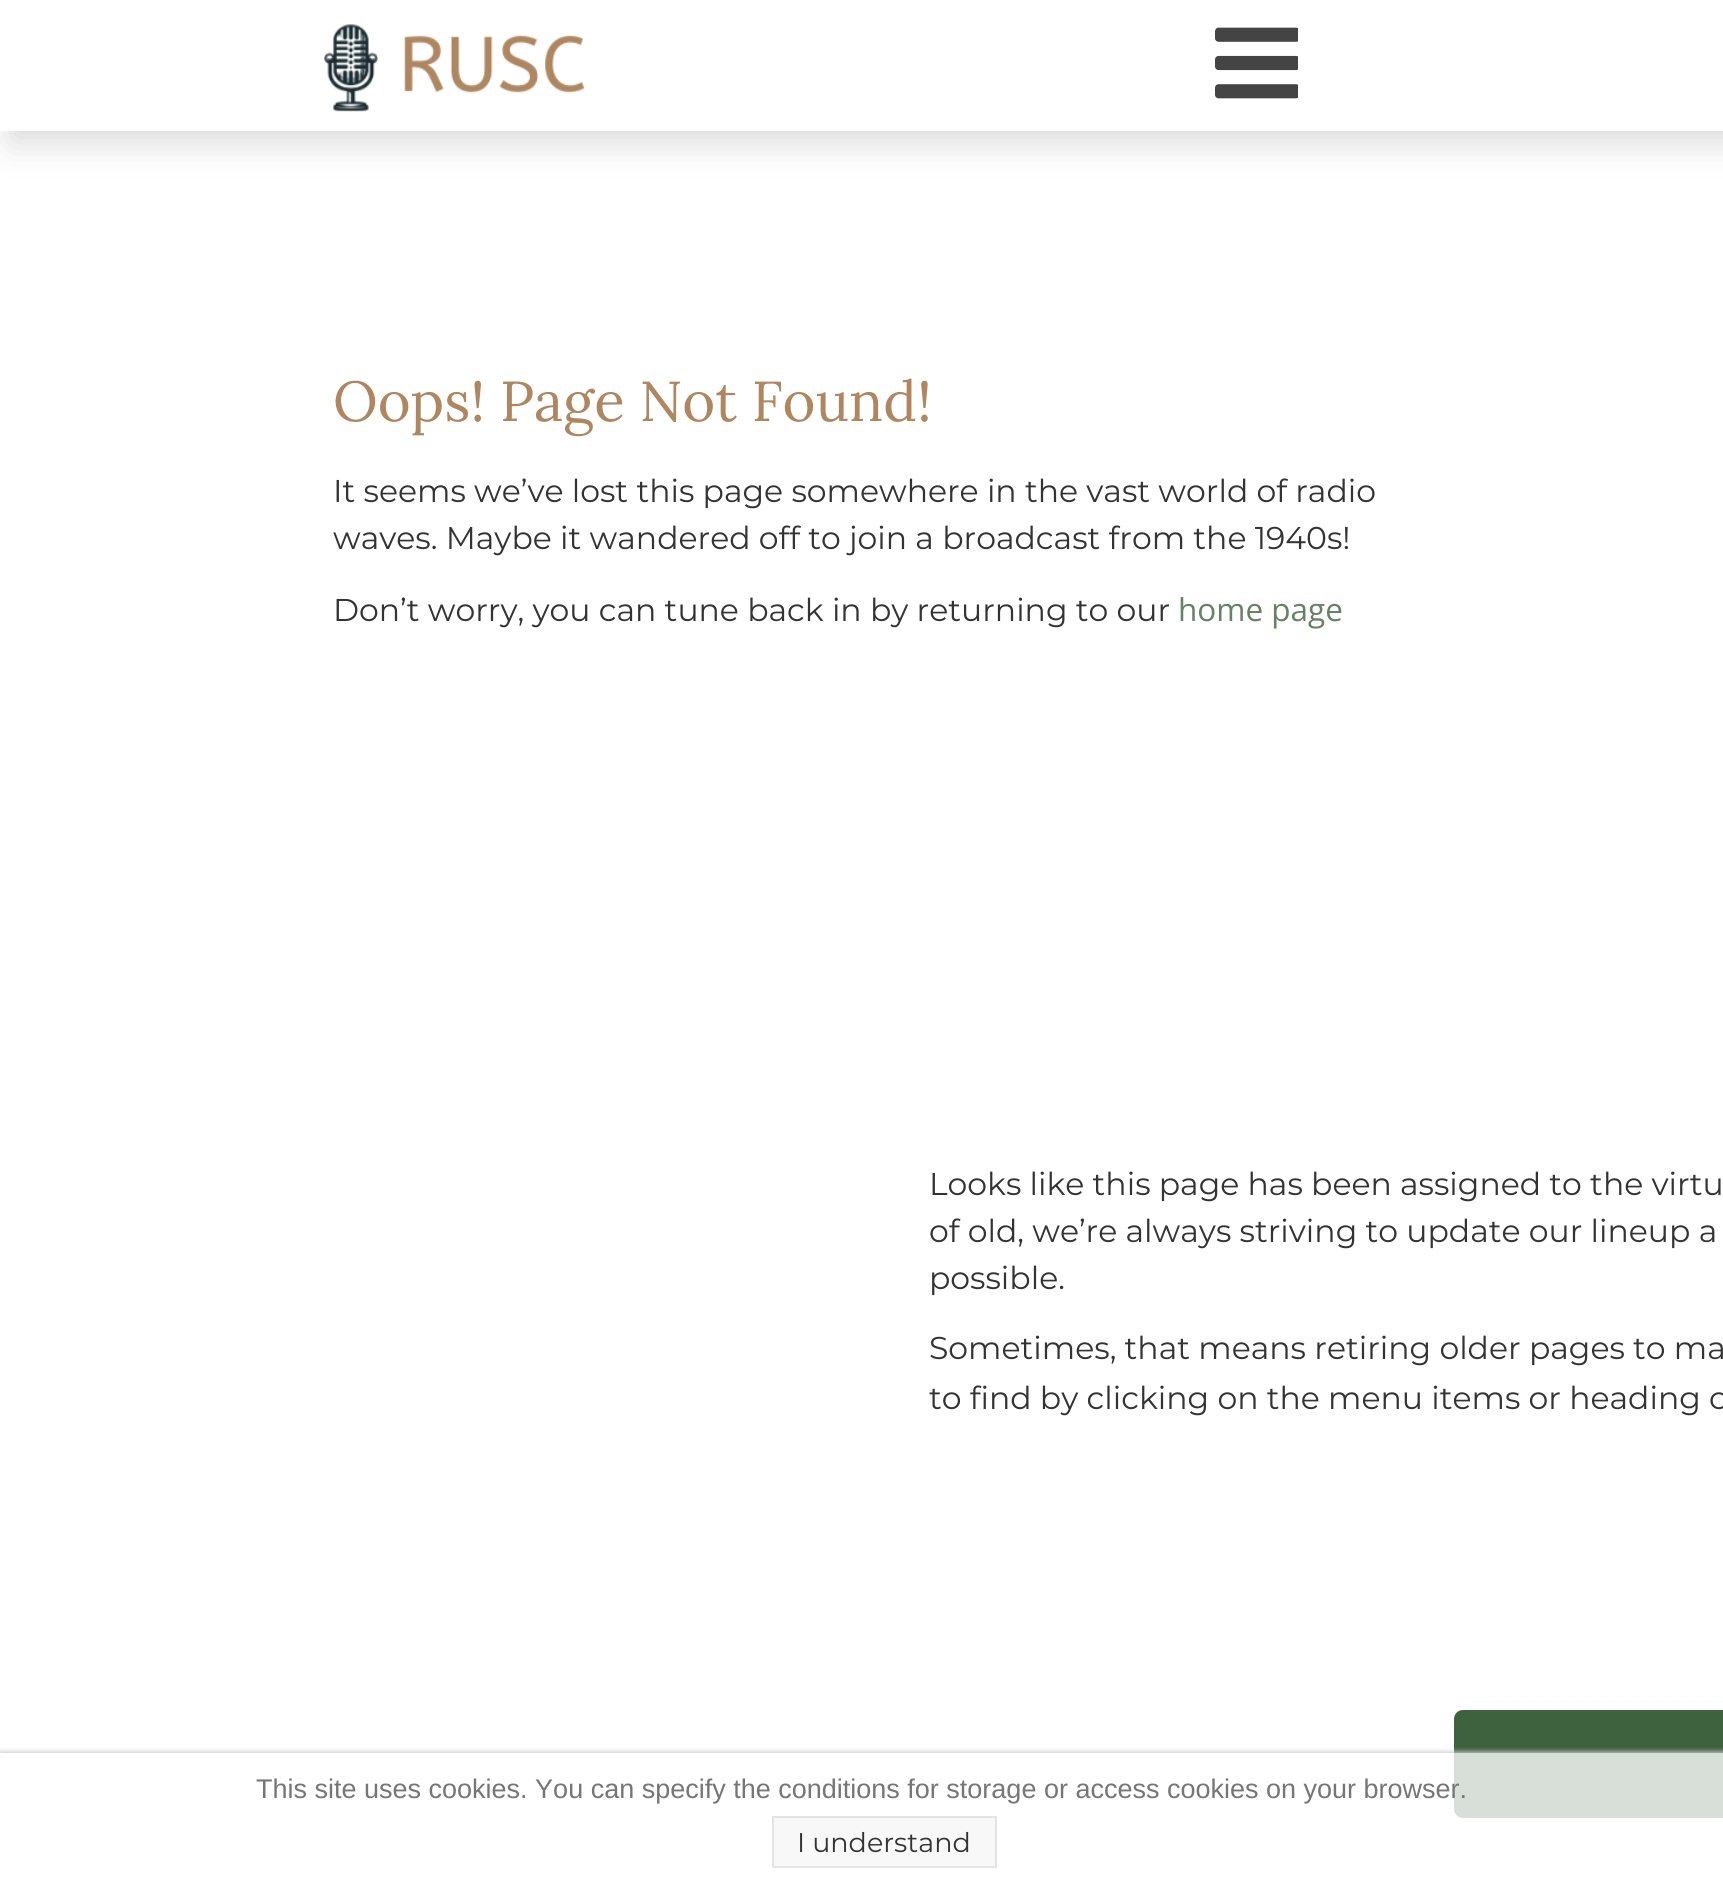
import math
import cairo

surface = cairo.ImageSurface(cairo.FORMAT_RGB24, 1723, 1886)
ctx = cairo.Context(surface)
options = cairo.FontOptions()
options.set_hint_metrics(cairo.HINT_METRICS_OFF)
options.set_hint_style(cairo.HINT_STYLE_NONE)
ctx.set_font_options(options)
ctx.set_miter_limit(4)


def set_color(code):
    ctx.set_source_rgb(*(v / 255 for v in bytes.fromhex(code[-6:])))


def draw_text(x, y, s, family, size, color, bold=False, italic=False):
    ctx.select_font_face(family, cairo.FONT_SLANT_ITALIC if italic else cairo.FONT_SLANT_NORMAL, cairo.FONT_WEIGHT_BOLD if bold else cairo.FONT_WEIGHT_NORMAL)
    ctx.set_font_size(size)
    set_color(color)
    ctx.move_to(x, y)
    ctx.show_text(s)


def fill_rect(x, y, w, h, color):
    set_color(color)
    ctx.rectangle(x, y, w, h)
    ctx.fill()


def rounded_rect(x, y, w, h, r):
    ctx.new_sub_path()
    for i, (u, v) in enumerate([(x + w - r, y + h - r), (x + r, y + h - r), (x + r, y + r), (x + w - r, y + r)]):
        ctx.arc(u, v, r, i * math.pi / 2, (i + 1) * math.pi / 2)
    ctx.close_path()


def draw_shadow(x, y, w, h, r, blur, alpha):
    ctx.push_group_with_content(cairo.CONTENT_ALPHA)
    ctx.set_operator(cairo.OPERATOR_SOURCE)
    for i in range(15, -16, -2):
        e = blur * i / 6
        if min(w, h) + 2 * e > 0:
            ctx.set_source_rgba(0, 0, 0, alpha * math.erfc((i - 1) / 8.5) / 2)
            rounded_rect(x - e, y - e, w + 2 * e, h + 2 * e, max(0, min(r + e + blur * .6, min(w, h) / 2 + e)))
            ctx.fill()
    ctx.mask(ctx.pop_group())


def draw_image(path, x, y, w, h):
    ctx.save()
    ctx.set_source_surface(cairo.ImageSurface.create_from_png(path), x, y)
    ctx.rectangle(x, y, w, h)
    ctx.fill()
    ctx.restore()


set_color("#ffffff")
ctx.paint()
set_color("#6e6e6e")
draw_shadow(11, 11, 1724, 131, 0, 17, 0.27)
fill_rect(0, 0, 1723, 131, "#ffffff")
draw_image("assets/img1.png", 324, 24, 261, 88)
draw_image("assets/img2.png", 1215, 27, 83, 72)
draw_text(333, 421, "Oops! Page Not Found!", "Lora", 56.25, "#ae8761")
draw_text(333, 502, "It seems we’ve lost this page somewhere in the vast world of radio", "Montserrat", 31.5, "#333333")
draw_text(333, 549, "waves. Maybe it wandered off to join a broadcast from the 1940s!", "Montserrat", 31.5, "#333333")
draw_text(333, 621, "Don’t worry, you can tune back in by returning to our", "Montserrat", 31.5, "#333333")
draw_text(1178, 621, "home page", "Open Sans", 31.5, "#658265")
draw_text(929, 1195, "Looks like this page has been assigned to the virtu", "Montserrat", 31.5, "#333333")
draw_text(929, 1242, "of old, we’re always striving to update our lineup a", "Montserrat", 31.5, "#333333")
draw_text(929, 1289, "possible.", "Montserrat", 31.5, "#333333")
draw_text(929, 1359, "Sometimes, that means retiring older pages to ma", "Montserrat", 31.5, "#333333")
draw_text(929, 1409, "to find by clicking on the menu items or heading o", "Montserrat", 31.5, "#333333")
set_color("#3e613e")
ctx.new_path()
ctx.move_to(1463, 1710)
ctx.line_to(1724, 1710)
ctx.line_to(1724, 1818)
ctx.line_to(1463, 1818)
ctx.curve_to(1458, 1818, 1454, 1814, 1454, 1809)
ctx.line_to(1454, 1719)
ctx.curve_to(1454, 1714, 1458, 1710, 1463, 1710)
ctx.close_path()
ctx.fill()
ctx.save()
ctx.rectangle(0, 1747, 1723, 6)
ctx.clip()
set_color("#cccccc")
draw_shadow(0, 1751, 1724, 135, 0, 2, 0.8)
ctx.restore()
ctx.set_source_rgba(1, 1, 1, 0.8)
ctx.rectangle(1454, 1753, 269, 65)
ctx.fill()
draw_text(256, 1798, "This site uses cookies. You can specify the conditions for storage or access cookies on your browser.", "Liberation Sans", 27, "#767676")
set_color("#f8f8f8")
ctx.rectangle(773, 1817, 223, 50)
ctx.fill_preserve()
set_color("#e4e4e4")
ctx.stroke()
draw_text(797, 1852, "I understand", "Montserrat", 27, "#333333")
surface.write_to_png("output.png")
